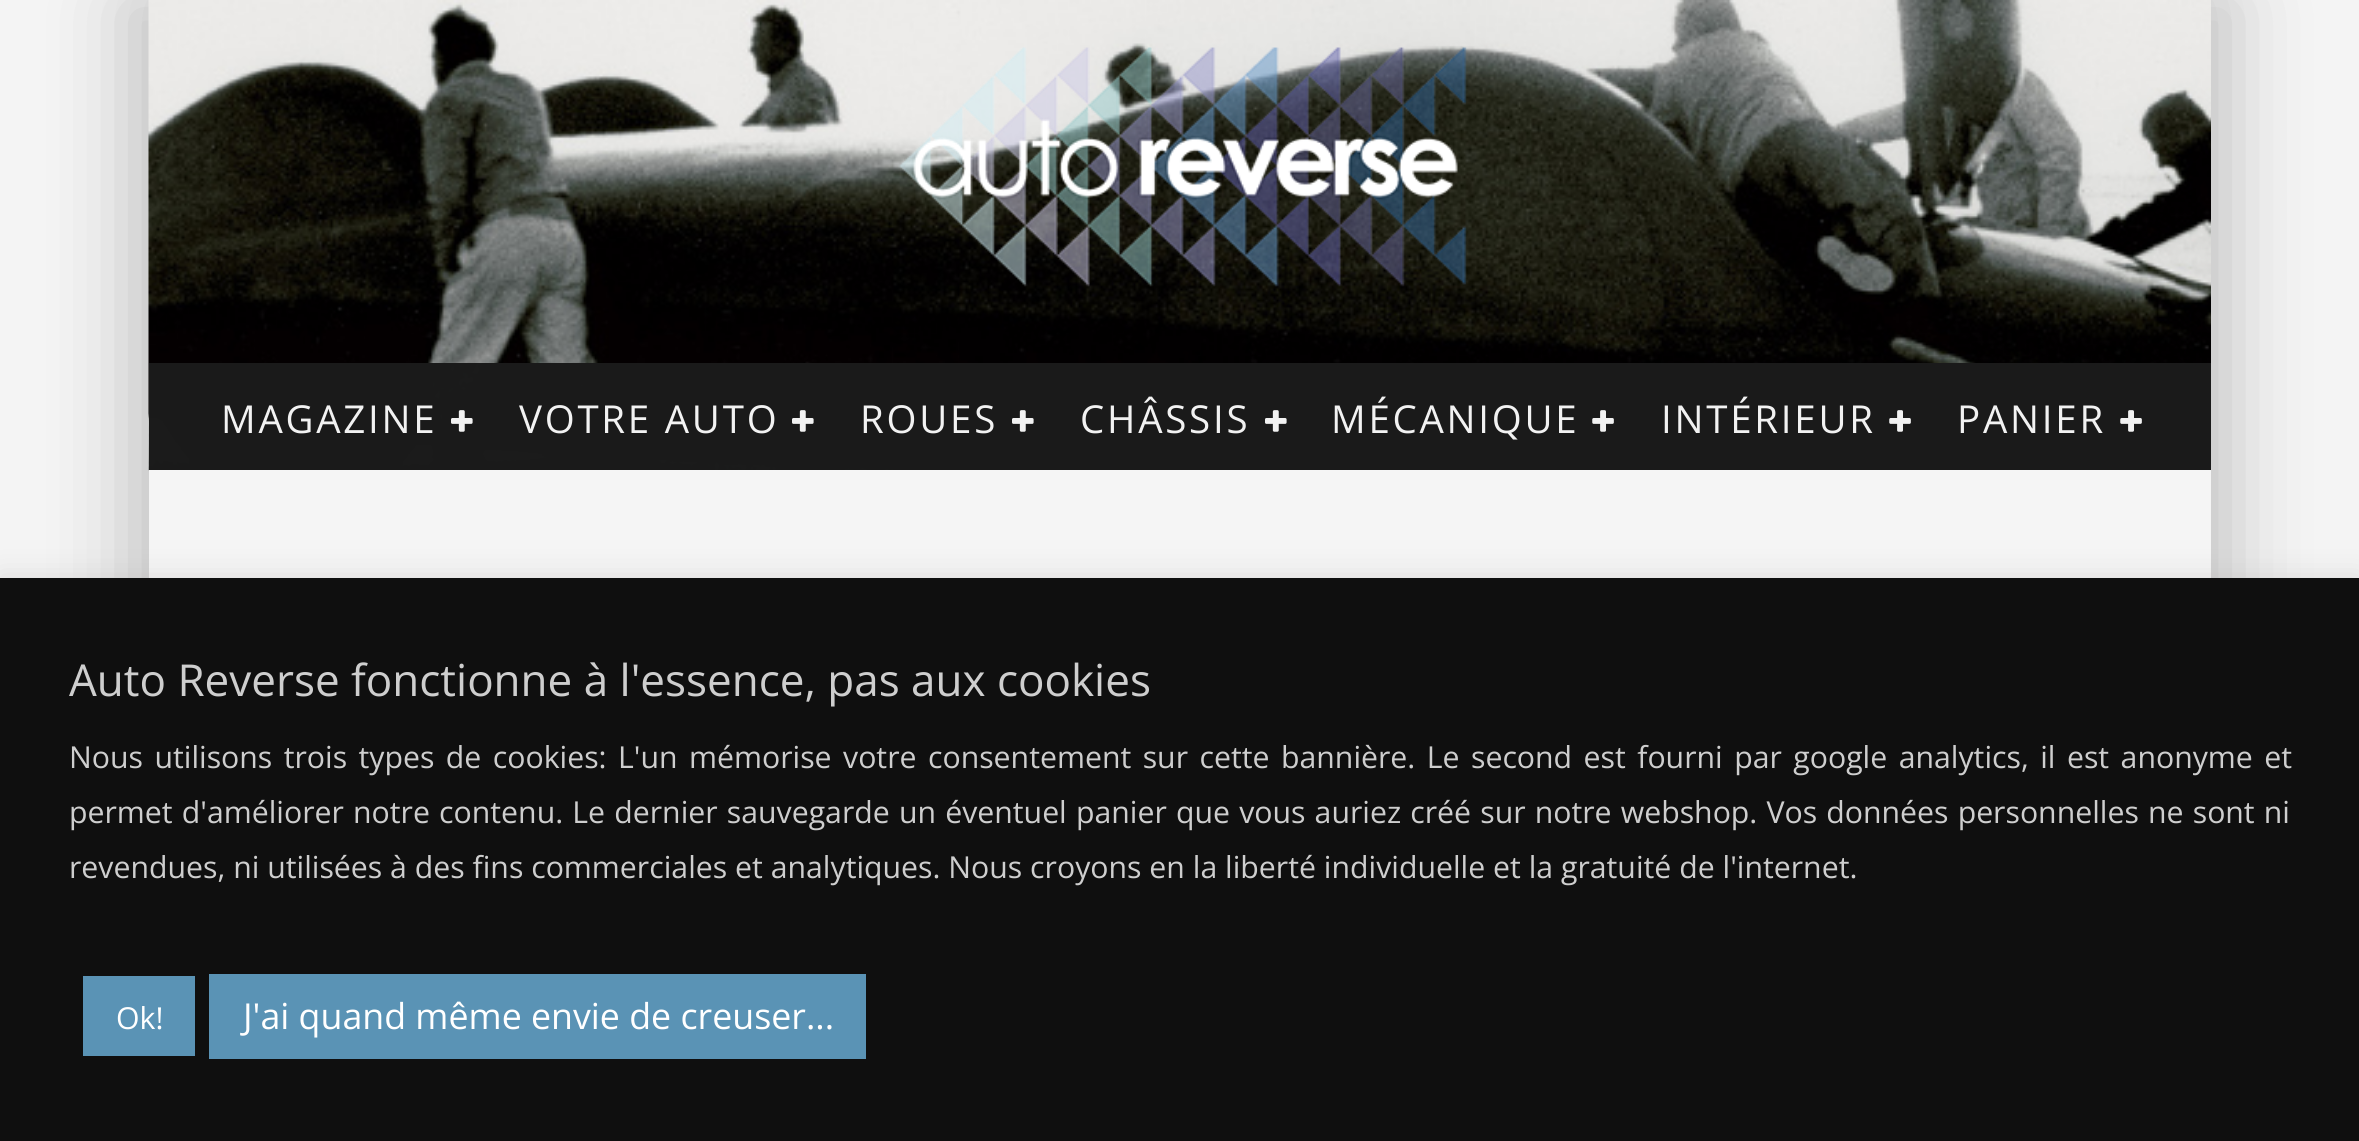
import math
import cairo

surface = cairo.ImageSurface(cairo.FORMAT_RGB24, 2359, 1141)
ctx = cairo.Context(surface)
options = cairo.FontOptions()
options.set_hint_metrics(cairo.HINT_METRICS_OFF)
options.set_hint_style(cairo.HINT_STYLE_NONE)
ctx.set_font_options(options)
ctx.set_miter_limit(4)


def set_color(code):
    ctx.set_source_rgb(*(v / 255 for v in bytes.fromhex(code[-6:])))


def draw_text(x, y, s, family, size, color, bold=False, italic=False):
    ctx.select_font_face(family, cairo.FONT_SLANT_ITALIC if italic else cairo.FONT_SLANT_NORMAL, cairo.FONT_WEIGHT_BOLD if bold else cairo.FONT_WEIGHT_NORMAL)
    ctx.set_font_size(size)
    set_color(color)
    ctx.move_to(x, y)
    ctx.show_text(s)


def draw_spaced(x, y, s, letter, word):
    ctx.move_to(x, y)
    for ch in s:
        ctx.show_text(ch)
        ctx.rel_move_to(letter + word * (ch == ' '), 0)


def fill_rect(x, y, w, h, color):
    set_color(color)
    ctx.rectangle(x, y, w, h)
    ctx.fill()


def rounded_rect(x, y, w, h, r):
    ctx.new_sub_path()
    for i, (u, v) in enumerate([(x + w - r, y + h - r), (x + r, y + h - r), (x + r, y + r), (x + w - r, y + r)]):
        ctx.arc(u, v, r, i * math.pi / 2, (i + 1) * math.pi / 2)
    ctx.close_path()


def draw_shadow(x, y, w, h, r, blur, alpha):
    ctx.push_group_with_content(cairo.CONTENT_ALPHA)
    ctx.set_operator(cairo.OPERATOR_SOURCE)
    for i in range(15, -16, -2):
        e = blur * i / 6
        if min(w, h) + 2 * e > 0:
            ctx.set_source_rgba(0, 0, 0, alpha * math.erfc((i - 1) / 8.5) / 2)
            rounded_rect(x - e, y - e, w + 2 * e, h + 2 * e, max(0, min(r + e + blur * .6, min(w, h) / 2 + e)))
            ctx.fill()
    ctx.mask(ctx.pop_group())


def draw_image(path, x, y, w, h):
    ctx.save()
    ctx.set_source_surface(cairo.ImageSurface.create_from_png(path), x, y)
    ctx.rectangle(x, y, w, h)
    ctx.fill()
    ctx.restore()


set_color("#f4f4f4")
ctx.paint()
set_color("#000000")
draw_shadow(121, 0, 2063, 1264, 0, 41, 0.15)
draw_shadow(176, 0, 2063, 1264, 0, 41, 0.15)
draw_image("assets/img1.png", 148, 0, 2063, 471)
draw_image("assets/img2.png", 898, 47, 569, 240)
ctx.set_source_rgba(0.106, 0.106, 0.106, 0.95)
ctx.rectangle(149, 363, 2062, 107)
ctx.fill()
ctx.rectangle(149, 363, 2062, 107)
ctx.fill()
ctx.select_font_face("Open Sans")
ctx.set_font_size(38.5)
set_color("#f2f2f2")
draw_spaced(221, 433, "MAGAZINE", 2.75, 0)
draw_image("assets/img3.png", 451, 410, 22, 22)
draw_spaced(519, 433, "VOTRE AUTO", 2.75, 0)
draw_image("assets/img4.png", 792, 410, 22, 22)
draw_spaced(860, 433, "ROUES", 2.75, 0)
draw_image("assets/img4.png", 1012, 410, 22, 22)
draw_spaced(1080, 433, "CHÂSSIS", 2.75, 0)
draw_image("assets/img4.png", 1265, 410, 22, 22)
draw_spaced(1331, 433, "MÉCANIQUE", 2.75, 0)
draw_image("assets/img5.png", 1592, 410, 22, 22)
draw_spaced(1661, 433, "INTÉRIEUR", 2.75, 0)
draw_image("assets/img5.png", 1889, 410, 22, 22)
draw_spaced(1957, 433, "PANIER", 2.75, 0)
draw_image("assets/img5.png", 2120, 410, 22, 22)
fill_rect(149, 470, 2062, 108, "#f5f5f5")
set_color("#acabab")
draw_shadow(0, 575, 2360, 564, 0, 14, 0.3)
fill_rect(0, 578, 2359, 563, "#0f0f0f")
draw_text(69, 696, "Auto Reverse fonctionne à l'essence, pas aux cookies", "Open Sans", 44, "#cecece")
ctx.set_font_size(30.25)
draw_spaced(69, 768, "Nous utilisons trois types de cookies: L'un mémorise votre consentement sur cette bannière. Le second est fourni par google analytics, il est anonyme et", 0, 3.6)
draw_spaced(69, 823, "permet d'améliorer notre contenu. Le dernier sauvegarde un éventuel panier que vous auriez créé sur notre webshop. Vos données personnelles ne sont ni", 0, 1.3)
draw_text(69, 878, "revendues, ni utilisées à des fins commerciales et analytiques. Nous croyons en la liberté individuelle et la gratuité de l'internet.", "Open Sans", 30.25, "#cecece")
fill_rect(83, 976, 112, 80, "#5a93b5")
draw_text(116, 1029, "Ok!", "Open Sans", 30.25, "#ffffff")
fill_rect(209, 974, 657, 85, "#5a93b5")
draw_text(243, 1029, "J'ai quand même envie de creuser...", "Open Sans", 35.75, "#ffffff")
surface.write_to_png("output.png")
